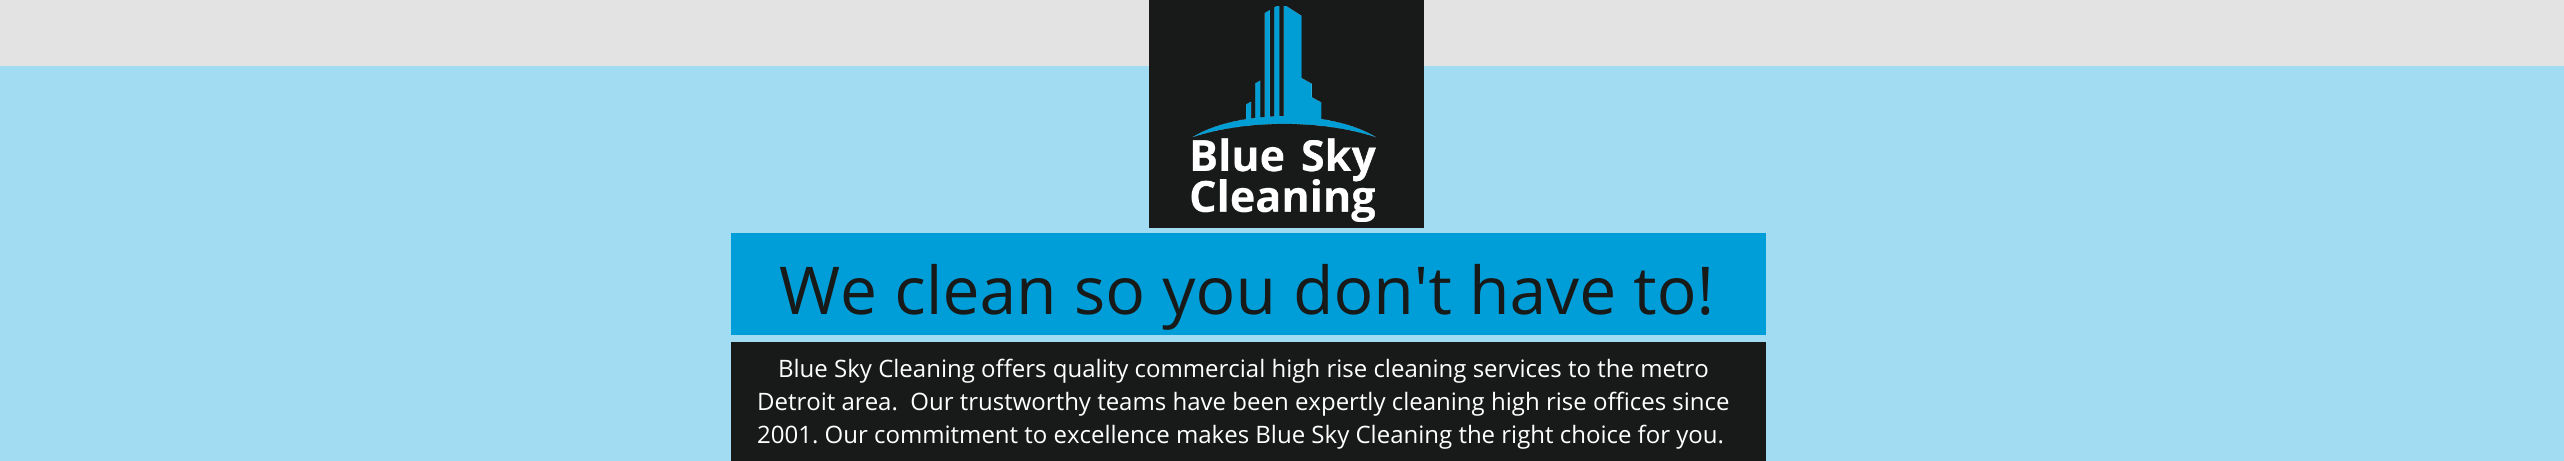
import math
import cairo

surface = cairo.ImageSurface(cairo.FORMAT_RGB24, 2564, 461)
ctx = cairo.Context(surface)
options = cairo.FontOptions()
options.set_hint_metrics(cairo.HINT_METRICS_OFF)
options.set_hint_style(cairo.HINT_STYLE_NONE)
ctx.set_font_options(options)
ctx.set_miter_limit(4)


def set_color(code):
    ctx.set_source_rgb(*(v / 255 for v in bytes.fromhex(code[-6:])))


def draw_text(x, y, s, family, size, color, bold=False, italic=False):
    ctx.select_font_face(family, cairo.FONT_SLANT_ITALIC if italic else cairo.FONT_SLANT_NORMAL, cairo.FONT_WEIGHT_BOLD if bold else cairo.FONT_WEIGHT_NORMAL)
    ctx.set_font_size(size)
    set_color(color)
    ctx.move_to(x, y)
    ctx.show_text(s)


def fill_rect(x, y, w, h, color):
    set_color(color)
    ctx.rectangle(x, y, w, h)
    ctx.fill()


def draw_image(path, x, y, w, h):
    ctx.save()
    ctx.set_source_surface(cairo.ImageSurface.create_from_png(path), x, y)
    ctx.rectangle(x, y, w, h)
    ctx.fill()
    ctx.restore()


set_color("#e3e3e3")
ctx.paint()
fill_rect(0, 66, 2564, 395, "#a1dcf2")
fill_rect(1149, 0, 275, 228, "#181919")
draw_image("assets/img1.png", 1191, 6, 186, 216)
fill_rect(731, 233, 1035, 102, "#009ed8")
draw_text(779, 314, "We clean so you don't have to!", "Open Sans", 66, "#181919")
fill_rect(731, 342, 1035, 119, "#181919")
draw_text(778, 377, "Blue Sky Cleaning offers quality commercial high rise cleaning services to the metro", "Open Sans", 24, "#ffffff")
draw_text(757, 410, "Detroit area.  Our trustworthy teams have been expertly cleaning high rise offices since", "Open Sans", 24, "#ffffff")
draw_text(757, 443, "2001. Our commitment to excellence makes Blue Sky Cleaning the right choice for you.", "Open Sans", 24, "#ffffff")
surface.write_to_png("output.png")
